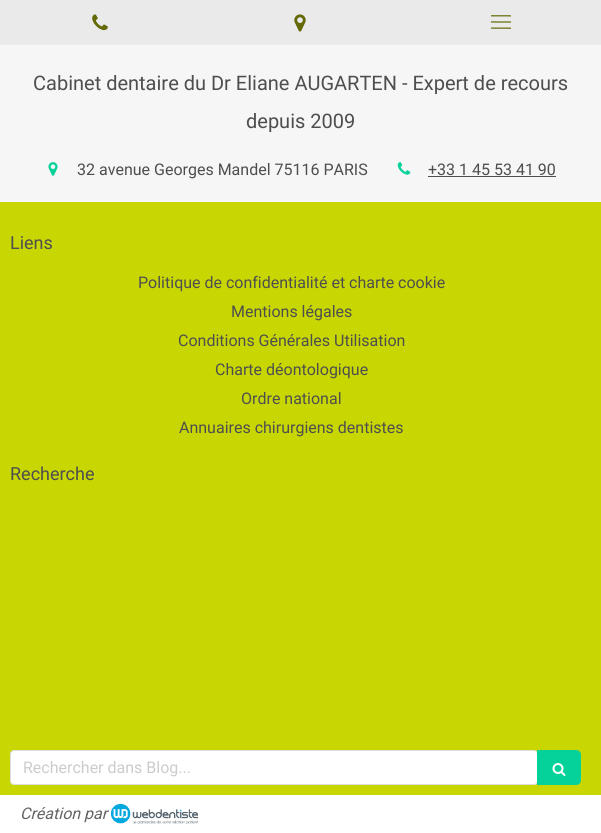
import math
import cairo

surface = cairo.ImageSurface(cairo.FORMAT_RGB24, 601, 833)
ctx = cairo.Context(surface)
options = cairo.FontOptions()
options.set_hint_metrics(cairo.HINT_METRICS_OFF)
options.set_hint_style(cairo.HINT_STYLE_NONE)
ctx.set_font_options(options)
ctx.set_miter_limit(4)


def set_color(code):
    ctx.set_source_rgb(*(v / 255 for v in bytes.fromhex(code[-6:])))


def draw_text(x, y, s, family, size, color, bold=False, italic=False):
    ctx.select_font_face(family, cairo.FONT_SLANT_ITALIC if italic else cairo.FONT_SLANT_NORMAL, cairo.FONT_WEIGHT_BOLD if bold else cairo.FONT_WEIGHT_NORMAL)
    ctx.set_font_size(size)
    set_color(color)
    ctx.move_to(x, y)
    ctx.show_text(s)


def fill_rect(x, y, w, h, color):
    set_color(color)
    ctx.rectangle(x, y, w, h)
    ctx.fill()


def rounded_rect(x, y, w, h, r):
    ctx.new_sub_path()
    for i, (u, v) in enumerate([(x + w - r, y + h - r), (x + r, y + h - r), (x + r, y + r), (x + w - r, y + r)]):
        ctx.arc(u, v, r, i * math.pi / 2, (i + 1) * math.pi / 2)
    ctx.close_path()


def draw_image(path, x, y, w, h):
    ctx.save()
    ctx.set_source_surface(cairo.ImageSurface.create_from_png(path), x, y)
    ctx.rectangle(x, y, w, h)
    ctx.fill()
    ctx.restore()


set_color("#ffffff")
ctx.paint()
fill_rect(0, 0, 601, 45, "#eaeaea")
draw_image("assets/img1.png", 92, 14, 16, 17)
draw_image("assets/img2.png", 294, 14, 12, 18)
draw_image("assets/img3.png", 491, 15, 20, 14)
fill_rect(0, 45, 601, 157, "#f6f6f6")
draw_text(33, 90, "Cabinet dentaire du Dr Eliane AUGARTEN - Expert de recours", "Roboto", 20, "#4e4e4e")
draw_text(246, 128, "depuis 2009", "Roboto", 20, "#4e4e4e")
draw_image("assets/img4.png", 48, 162, 10, 14)
draw_text(77, 175, "32 avenue Georges Mandel 75116 PARIS", "Roboto", 16, "#4e4e4e")
draw_image("assets/img5.png", 397, 162, 14, 13)
draw_text(428, 175, "+33 1 45 53 41 90", "Roboto", 16, "#4e4e4e")
fill_rect(428, 176, 128, 1, "#4e4e4e")
fill_rect(0, 202, 601, 593, "#c8d702")
draw_text(10, 249, "Liens", "Roboto", 18, "#4e4e4e")
draw_text(138, 288, "Politique de confidentialité et charte cookie", "Roboto", 16, "#4e4e4e")
draw_text(231, 317, "Mentions légales", "Roboto", 16, "#4e4e4e")
draw_text(178, 346, "Conditions Générales Utilisation", "Roboto", 16, "#4e4e4e")
draw_text(215, 375, "Charte déontologique", "Roboto", 16, "#4e4e4e")
draw_text(241, 404, "Ordre national", "Roboto", 16, "#4e4e4e")
draw_text(179, 433, "Annuaires chirurgiens dentistes", "Roboto", 16, "#4e4e4e")
draw_text(10, 480, "Recherche", "Roboto", 18, "#4e4e4e")
set_color("#ffffff")
rounded_rect(10.5, 750.5, 527, 34, 3.5)
ctx.fill_preserve()
set_color("#dddddd")
ctx.set_line_width(1)
ctx.stroke()
draw_text(23, 773, "Rechercher dans Blog...", "Roboto", 16, "#cccccc")
set_color("#05d29b")
ctx.new_path()
ctx.move_to(537, 750)
ctx.line_to(576, 750)
ctx.curve_to(579, 750, 581, 752, 581, 755)
ctx.line_to(581, 780)
ctx.curve_to(581, 783, 579, 785, 576, 785)
ctx.line_to(537, 785)
ctx.close_path()
ctx.fill()
draw_image("assets/img6.png", 552, 763, 14, 13)
draw_text(20, 819, "Création par", "Roboto", 16, "#646464", italic=True)
draw_image("assets/img7.png", 111, 804, 87, 20)
surface.write_to_png("output.png")
